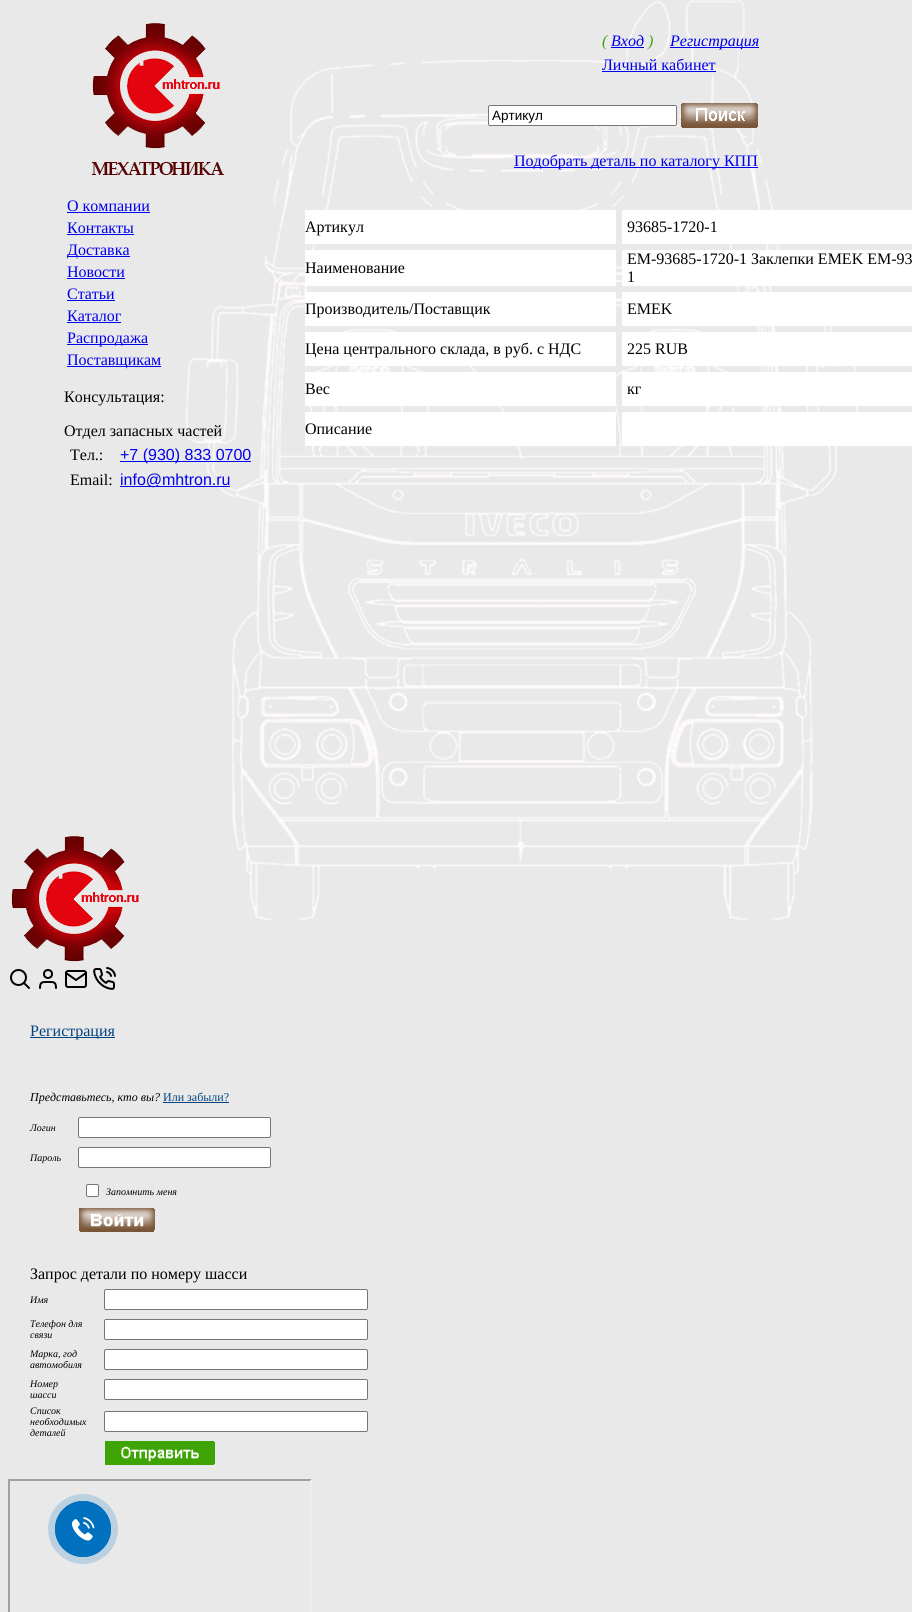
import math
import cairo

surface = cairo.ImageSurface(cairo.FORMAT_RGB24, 912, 1612)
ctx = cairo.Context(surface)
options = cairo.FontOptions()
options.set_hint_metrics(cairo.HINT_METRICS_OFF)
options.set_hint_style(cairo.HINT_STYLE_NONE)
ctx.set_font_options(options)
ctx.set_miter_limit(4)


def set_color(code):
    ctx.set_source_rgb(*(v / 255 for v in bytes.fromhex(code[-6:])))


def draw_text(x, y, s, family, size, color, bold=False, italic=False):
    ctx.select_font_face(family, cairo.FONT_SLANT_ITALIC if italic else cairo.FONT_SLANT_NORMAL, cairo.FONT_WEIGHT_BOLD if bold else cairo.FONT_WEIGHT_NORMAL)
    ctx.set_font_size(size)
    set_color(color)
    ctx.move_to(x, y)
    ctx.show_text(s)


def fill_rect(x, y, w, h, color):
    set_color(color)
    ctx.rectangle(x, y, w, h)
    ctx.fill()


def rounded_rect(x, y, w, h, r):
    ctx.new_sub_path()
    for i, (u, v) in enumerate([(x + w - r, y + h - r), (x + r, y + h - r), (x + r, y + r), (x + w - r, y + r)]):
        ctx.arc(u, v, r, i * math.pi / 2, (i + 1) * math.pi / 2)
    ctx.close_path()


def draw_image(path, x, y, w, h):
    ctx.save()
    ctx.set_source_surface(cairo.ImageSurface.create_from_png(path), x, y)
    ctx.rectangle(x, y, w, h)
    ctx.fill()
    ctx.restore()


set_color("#eae9e9")
ctx.paint()
draw_image("assets/img1.png", 185, 0, 673, 920)
draw_image("assets/img2.png", 91, 23, 183, 232)
draw_text(602, 46, "(", "Liberation Serif", 16, "#3ea304", italic=True)
draw_text(611, 46, "Вход", "Liberation Serif", 16, "#0000ee", italic=True)
fill_rect(611, 47, 33, 1, "#0000ee")
draw_text(648, 46, ")", "Liberation Serif", 16, "#3ea304", italic=True)
fill_rect(670, 47, 89, 1, "#0000ee")
draw_text(670, 46, "Регистрация", "Liberation Serif", 16, "#0000ee", italic=True)
draw_text(602, 70, "Личный кабинет", "Liberation Serif", 16, "#0000ee")
fill_rect(602, 71, 114, 1, "#0000ee")
set_color("#ffffff")
rounded_rect(488.5, 105.5, 188, 20, 1.5)
ctx.fill_preserve()
set_color("#767676")
ctx.set_line_width(1)
ctx.stroke()
draw_text(492, 120, "Артикул", "Liberation Sans", 13.5, "#000000")
fill_rect(681, 103, 77, 25, "#efefef")
draw_image("assets/img3.png", 681, 103, 77, 25)
fill_rect(514, 167, 244, 1, "#0000ee")
draw_text(514, 166, "Подобрать деталь по каталогу КПП", "Liberation Serif", 16, "#0000ee")
draw_text(67, 211, "О компании", "Liberation Serif", 16, "#0000ee")
fill_rect(67, 212, 83, 1, "#0000ee")
draw_text(67, 233, "Контакты", "Liberation Serif", 16, "#0000ee")
fill_rect(67, 234, 67, 1, "#0000ee")
fill_rect(67, 256, 63, 1, "#0000ee")
draw_text(67, 255, "Доставка", "Liberation Serif", 16, "#0000ee")
draw_text(67, 277, "Новости", "Liberation Serif", 16, "#0000ee")
fill_rect(67, 278, 58, 1, "#0000ee")
draw_text(67, 299, "Статьи", "Liberation Serif", 16, "#0000ee")
fill_rect(67, 300, 48, 1, "#0000ee")
draw_text(67, 321, "Каталог", "Liberation Serif", 16, "#0000ee")
fill_rect(67, 322, 54, 1, "#0000ee")
fill_rect(67, 344, 81, 1, "#0000ee")
draw_text(67, 343, "Распродажа", "Liberation Serif", 16, "#0000ee")
fill_rect(67, 366, 94, 1, "#0000ee")
draw_text(67, 365, "Поставщикам", "Liberation Serif", 16, "#0000ee")
draw_text(64, 402, "Консультация:", "Liberation Serif", 16, "#000000")
draw_text(64, 436, "Отдел запасных частей", "Liberation Serif", 16, "#000000")
draw_text(70, 460, "Тел.:", "Liberation Serif", 16, "#000000")
fill_rect(120, 461, 131, 1, "#0000ee")
draw_text(120, 460, "+7 (930) 833 0700", "Liberation Sans", 16, "#0000ee")
draw_text(70, 485, "Email:", "Liberation Serif", 16, "#000000")
fill_rect(120, 486, 110, 1, "#0000ee")
draw_text(120, 485, "info@mhtron.ru", "Liberation Sans", 16, "#0000ee")
fill_rect(305, 210, 311, 34, "#ffffff")
draw_text(305, 232, "Артикул", "Liberation Serif", 16, "#000000")
fill_rect(622, 210, 290, 34, "#ffffff")
draw_text(627, 232, "93685-1720-1", "Liberation Serif", 16, "#000000")
fill_rect(305, 250, 311, 36, "#ffffff")
draw_text(305, 273, "Наименование", "Liberation Serif", 16, "#000000")
fill_rect(622, 250, 290, 36, "#ffffff")
draw_text(627, 264, "EM-93685-1720-1 Заклепки EMEK EM-93", "Liberation Serif", 16, "#000000")
draw_text(627, 282, "1", "Liberation Serif", 16, "#000000")
fill_rect(305, 292, 311, 34, "#ffffff")
draw_text(305, 314, "Производитель/Поставщик", "Liberation Serif", 16, "#000000")
fill_rect(622, 292, 290, 34, "#ffffff")
draw_text(627, 314, "EMEK", "Liberation Serif", 16, "#000000")
fill_rect(305, 332, 311, 34, "#ffffff")
draw_text(305, 354, "Цена центрального склада, в руб. с НДС", "Liberation Serif", 16, "#000000")
fill_rect(622, 332, 290, 34, "#ffffff")
draw_text(627, 354, "225 RUB", "Liberation Serif", 16, "#000000")
fill_rect(305, 372, 311, 34, "#ffffff")
draw_text(305, 394, "Вес", "Liberation Serif", 16, "#000000")
fill_rect(622, 372, 290, 34, "#ffffff")
draw_text(627, 394, "кг", "Liberation Serif", 16, "#000000")
fill_rect(305, 412, 311, 34, "#ffffff")
draw_text(305, 434, "Описание", "Liberation Serif", 16, "#000000")
fill_rect(622, 412, 290, 34, "#ffffff")
draw_image("assets/img4.png", 11, 836, 128, 126)
ctx.arc(18.5, 977.5, 7.5, 0, 2 * math.pi)
set_color("#000000")
ctx.set_line_width(2)
ctx.stroke()
ctx.arc(48, 974, 4, 0, 2 * math.pi)
ctx.stroke()
draw_image("assets/img5.png", 65, 970, 22, 18)
draw_image("assets/img6.png", 93, 967, 23, 23)
ctx.new_path()
ctx.move_to(29, 988)
ctx.line_to(24, 983)
ctx.move_to(56, 988)
ctx.curve_to(56, 981.5, 53.5, 982, 48, 982)
ctx.curve_to(42.5, 982, 40, 981.5, 40, 988)
ctx.set_line_cap(cairo.LINE_CAP_ROUND)
ctx.set_line_join(cairo.LINE_JOIN_ROUND)
ctx.stroke()
fill_rect(30, 1037, 85, 1, "#00437f")
draw_text(30, 1036, "Регистрация", "Liberation Serif", 16, "#00437f")
draw_text(30, 1101, "Представьтесь, кто вы?", "Liberation Serif", 12, "#000000", italic=True)
draw_text(163, 1101, "Или забыли?", "Liberation Serif", 12, "#00437f")
fill_rect(163, 1102, 66, 1, "#00437f")
draw_text(30, 1131, "Логин", "Liberation Serif", 10, "#000000", italic=True)
set_color("#ffffff")
rounded_rect(78.5, 1117.5, 192, 20, 1.5)
ctx.fill_preserve()
set_color("#767676")
ctx.set_line_width(1)
ctx.set_line_cap(cairo.LINE_CAP_BUTT)
ctx.set_line_join(cairo.LINE_JOIN_MITER)
ctx.stroke()
draw_text(30, 1161, "Пароль", "Liberation Serif", 10, "#000000", italic=True)
set_color("#ffffff")
rounded_rect(78.5, 1147.5, 192, 20, 1.5)
ctx.fill_preserve()
set_color("#767676")
ctx.stroke()
set_color("#ffffff")
rounded_rect(86.5, 1184.5, 12, 12, 1.5)
ctx.fill_preserve()
set_color("#767676")
ctx.stroke()
draw_text(106, 1195, "Запомнить меня", "Liberation Serif", 10, "#000000", italic=True)
draw_image("assets/img7.png", 79, 1208, 76, 24)
draw_text(30, 1279, "Запрос детали по номеру шасси", "Liberation Serif", 16, "#000000")
draw_text(30, 1303, "Имя", "Liberation Serif", 10, "#000000", italic=True)
set_color("#ffffff")
rounded_rect(104.5, 1289.5, 263, 20, 1.5)
ctx.fill_preserve()
set_color("#767676")
ctx.stroke()
draw_text(30, 1327, "Телефон для", "Liberation Serif", 10, "#000000", italic=True)
draw_text(30, 1338, "связи", "Liberation Serif", 10, "#000000", italic=True)
set_color("#ffffff")
rounded_rect(104.5, 1319.5, 263, 20, 1.5)
ctx.fill_preserve()
set_color("#767676")
ctx.stroke()
draw_text(30, 1357, "Марка, год", "Liberation Serif", 10, "#000000", italic=True)
draw_text(30, 1368, "автомобиля", "Liberation Serif", 10, "#000000", italic=True)
set_color("#ffffff")
rounded_rect(104.5, 1349.5, 263, 20, 1.5)
ctx.fill_preserve()
set_color("#767676")
ctx.stroke()
draw_text(30, 1387, "Номер", "Liberation Serif", 10, "#000000", italic=True)
draw_text(30, 1398, "шасси", "Liberation Serif", 10, "#000000", italic=True)
set_color("#ffffff")
rounded_rect(104.5, 1379.5, 263, 20, 1.5)
ctx.fill_preserve()
set_color("#767676")
ctx.stroke()
draw_text(30, 1414, "Список", "Liberation Serif", 10, "#000000", italic=True)
draw_text(30, 1425, "необходимых", "Liberation Serif", 10, "#000000", italic=True)
draw_text(30, 1436, "деталей", "Liberation Serif", 10, "#000000", italic=True)
set_color("#ffffff")
rounded_rect(104.5, 1411.5, 263, 20, 1.5)
ctx.fill_preserve()
set_color("#767676")
ctx.stroke()
draw_image("assets/img8.png", 105, 1441, 110, 24)
set_color("#9f9f9f")
ctx.new_path()
ctx.move_to(8, 1479)
ctx.line_to(312, 1479)
ctx.line_to(310, 1481)
ctx.line_to(10, 1481)
ctx.close_path()
ctx.fill()
ctx.new_path()
ctx.move_to(8, 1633)
ctx.line_to(8, 1479)
ctx.line_to(10, 1481)
ctx.line_to(10, 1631)
ctx.close_path()
ctx.fill()
set_color("#bbd1e1")
ctx.arc(83, 1529, 35, 0, 2 * math.pi)
ctx.fill()
ctx.arc(83, 1529, 27.6, 0, 2 * math.pi)
set_color("#0070bf")
ctx.set_line_width(0.8)
ctx.stroke()
ctx.arc(83, 1529, 28, 0, 2 * math.pi)
ctx.fill()
draw_image("assets/img9.png", 71, 1517, 24, 24)
set_color("#eeeeee")
ctx.new_path()
ctx.move_to(312, 1479)
ctx.line_to(312, 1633)
ctx.line_to(310, 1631)
ctx.line_to(310, 1481)
ctx.close_path()
ctx.fill()
surface.write_to_png("output.png")
